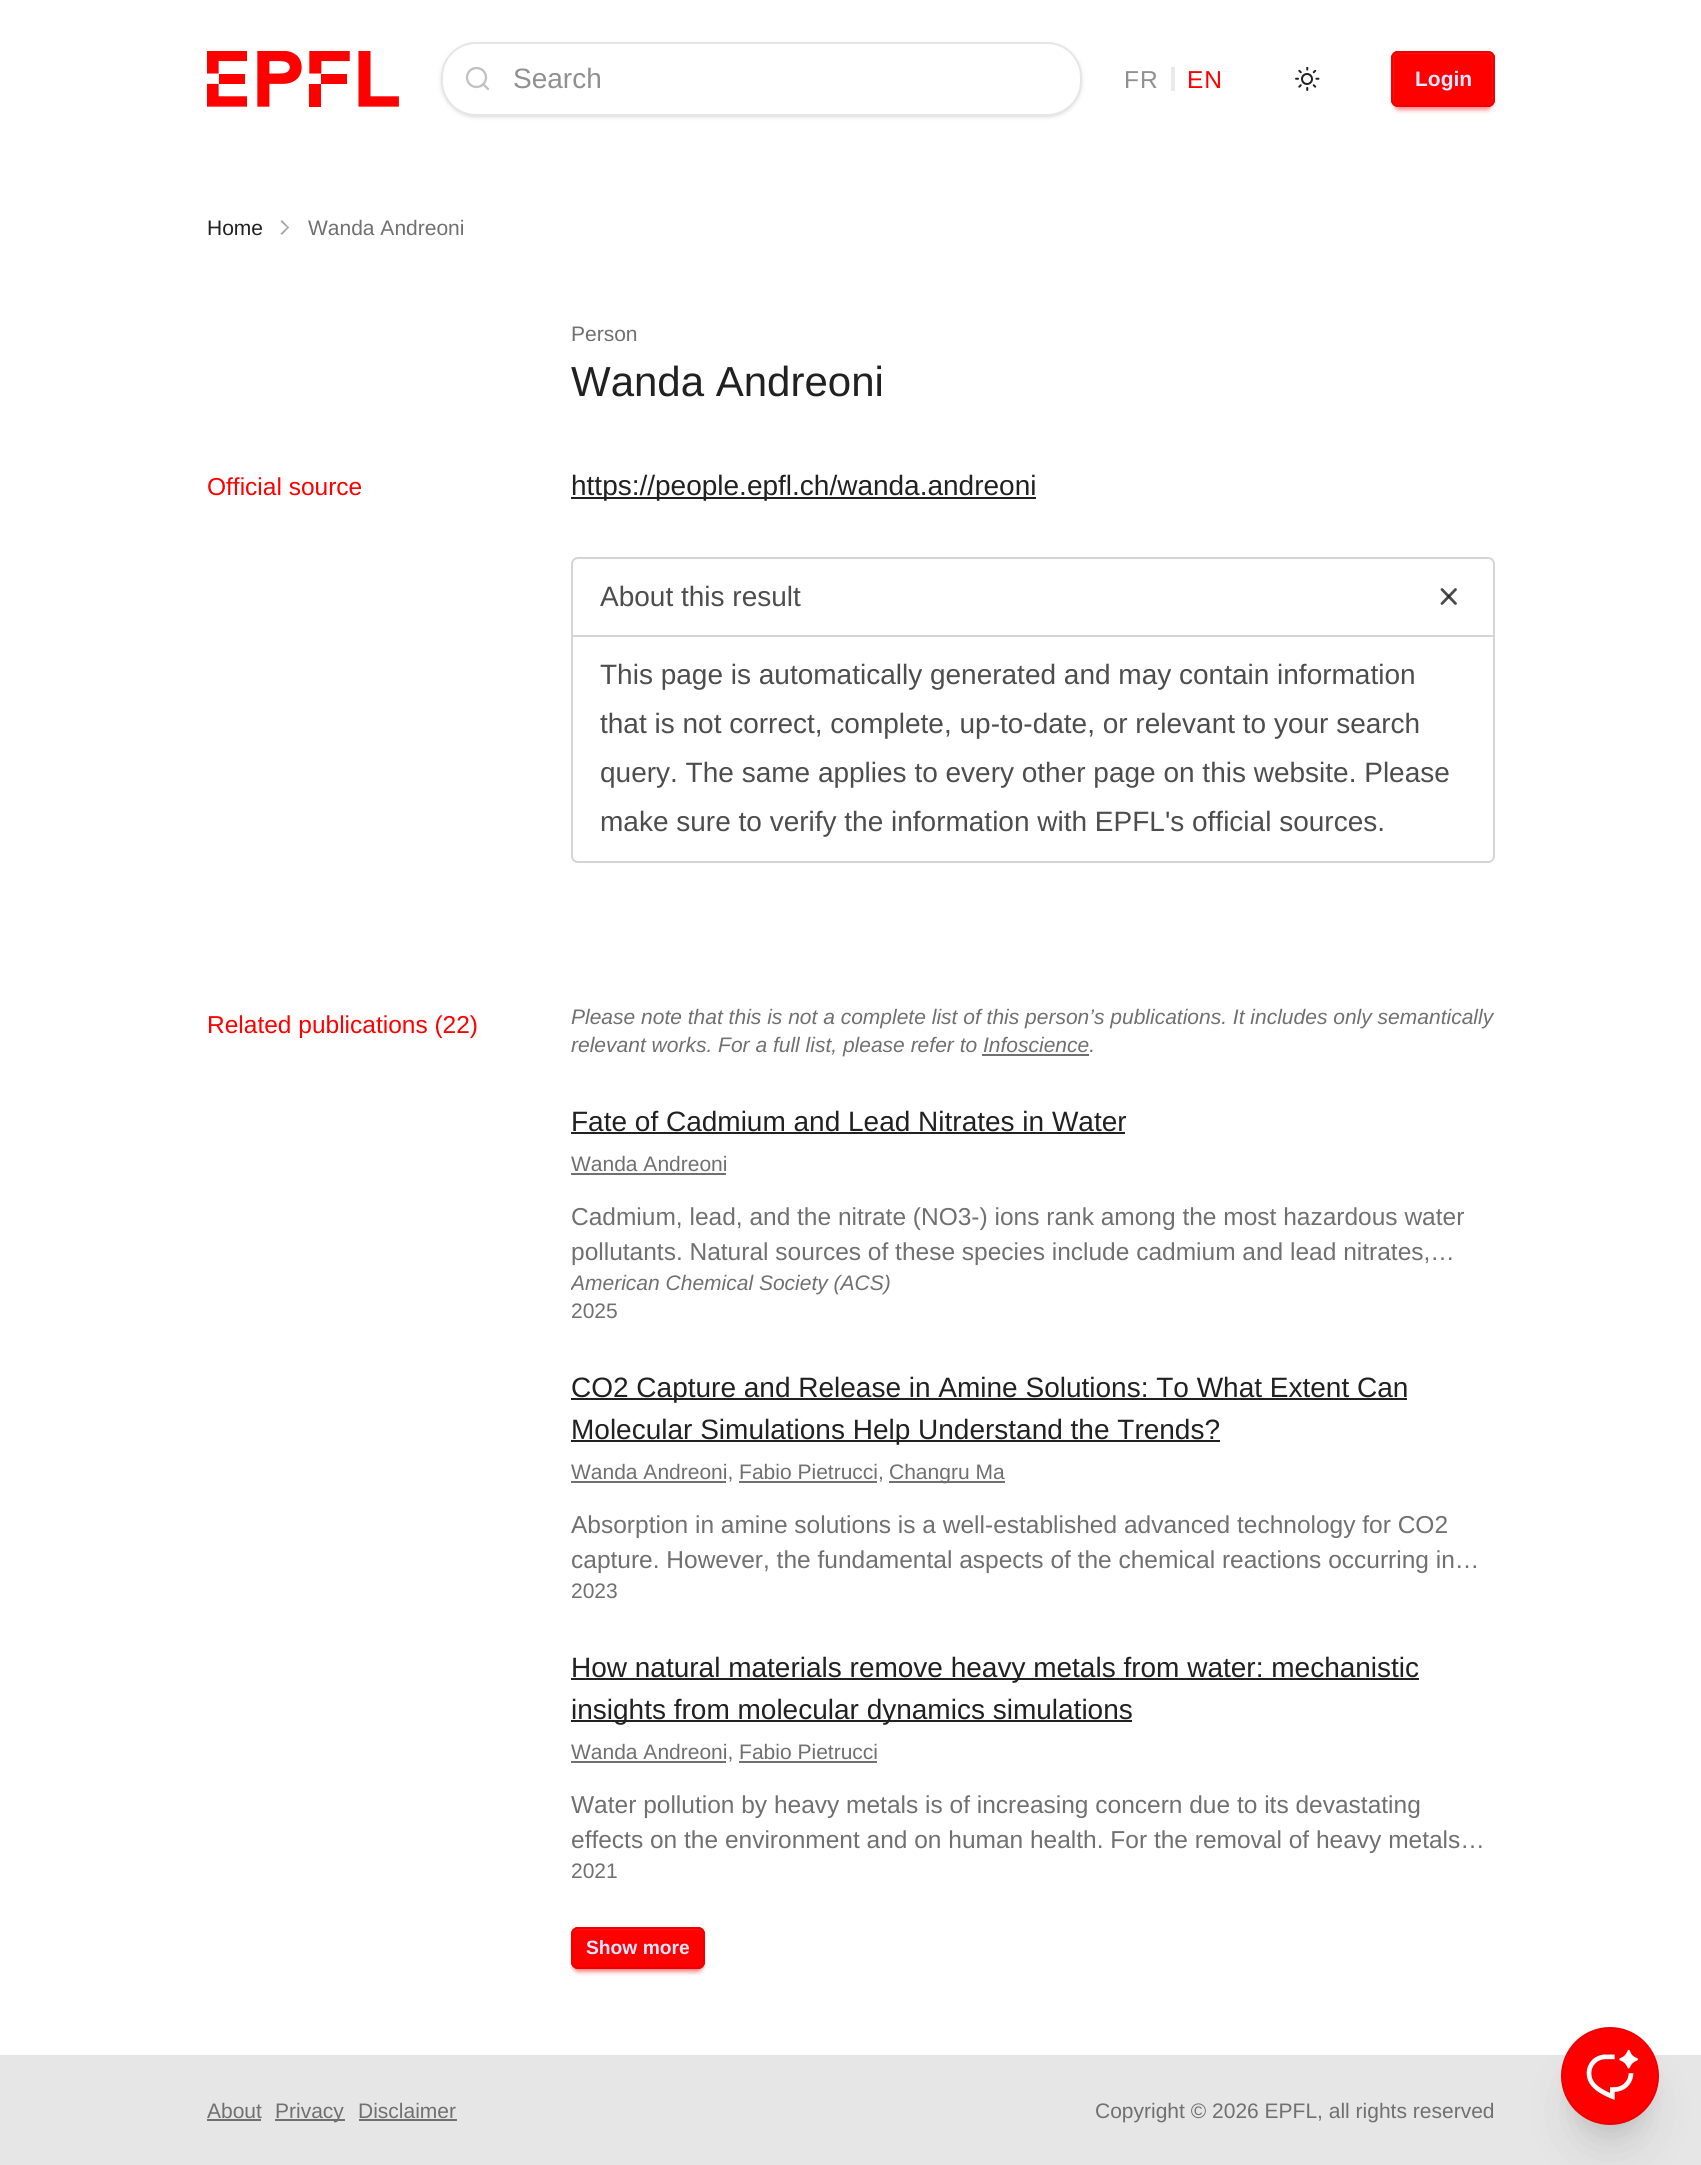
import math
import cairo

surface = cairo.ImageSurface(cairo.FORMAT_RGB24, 1701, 2165)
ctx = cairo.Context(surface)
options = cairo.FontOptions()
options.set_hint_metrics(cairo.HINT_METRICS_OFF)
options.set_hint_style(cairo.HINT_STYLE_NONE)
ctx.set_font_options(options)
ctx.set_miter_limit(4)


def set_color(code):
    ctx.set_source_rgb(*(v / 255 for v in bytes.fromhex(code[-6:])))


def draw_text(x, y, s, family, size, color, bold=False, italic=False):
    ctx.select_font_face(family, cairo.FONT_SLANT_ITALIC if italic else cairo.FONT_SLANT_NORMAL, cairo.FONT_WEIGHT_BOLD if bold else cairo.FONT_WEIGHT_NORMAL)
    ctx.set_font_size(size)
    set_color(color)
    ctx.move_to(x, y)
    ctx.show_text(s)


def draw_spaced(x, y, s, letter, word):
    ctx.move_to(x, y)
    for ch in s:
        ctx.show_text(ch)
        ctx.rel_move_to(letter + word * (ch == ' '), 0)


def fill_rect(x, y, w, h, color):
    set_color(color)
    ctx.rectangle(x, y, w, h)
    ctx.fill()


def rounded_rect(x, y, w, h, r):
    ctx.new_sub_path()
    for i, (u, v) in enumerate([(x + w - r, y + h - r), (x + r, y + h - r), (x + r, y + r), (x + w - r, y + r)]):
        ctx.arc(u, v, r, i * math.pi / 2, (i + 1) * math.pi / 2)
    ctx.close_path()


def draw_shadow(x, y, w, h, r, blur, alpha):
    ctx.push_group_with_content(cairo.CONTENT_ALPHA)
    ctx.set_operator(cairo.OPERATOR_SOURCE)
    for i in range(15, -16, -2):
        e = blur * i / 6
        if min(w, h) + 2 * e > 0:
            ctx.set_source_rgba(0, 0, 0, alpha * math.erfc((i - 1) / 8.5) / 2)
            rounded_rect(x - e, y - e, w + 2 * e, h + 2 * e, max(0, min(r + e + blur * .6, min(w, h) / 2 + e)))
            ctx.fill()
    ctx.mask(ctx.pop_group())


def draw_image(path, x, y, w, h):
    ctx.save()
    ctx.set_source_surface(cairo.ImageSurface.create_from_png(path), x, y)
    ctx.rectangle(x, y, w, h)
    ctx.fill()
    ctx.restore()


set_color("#ffffff")
ctx.paint()
draw_image("assets/img1.png", 207, 51, 192, 56)
set_color("#000000")
draw_shadow(443, 46, 637, 70, 33, 2, 0.1)
draw_shadow(441, 44, 641, 73, 35, 2.5, 0.1)
set_color("#ffffff")
rounded_rect(442, 43, 639, 72, 34)
ctx.fill_preserve()
set_color("#e6e6e6")
ctx.stroke()
ctx.arc(476.5, 77.5, 9.5, 0, 2 * math.pi)
set_color("#c1c1c1")
ctx.set_line_width(2.3)
ctx.stroke()
ctx.new_path()
ctx.move_to(488, 89)
ctx.line_to(483, 84)
ctx.set_line_cap(cairo.LINE_CAP_ROUND)
ctx.set_line_join(cairo.LINE_JOIN_ROUND)
ctx.stroke()
draw_text(513, 88, "Search", "Liberation Sans", 28, "#909090")
ctx.set_font_size(24.5)
draw_spaced(1124, 88, "FR", 1, 0)
fill_rect(1171, 67, 4, 24, "#e9e9e9")
set_color("#ff0000")
draw_spaced(1187, 88, "EN", 1, 0)
draw_image("assets/img2.png", 1295, 67, 25, 24)
set_color("#ff0000")
draw_shadow(1395, 61, 96, 49, 4, 2.5, 0.3)
draw_shadow(1395, 60, 96, 49, 4, 2, 0.3)
set_color("#ff0000")
rounded_rect(1391, 51, 104, 56, 7)
ctx.fill()
set_color("#ff0f0f")
ctx.new_path()
ctx.move_to(1398, 54)
ctx.line_to(1488, 54)
ctx.curve_to(1490, 54, 1492, 56, 1492, 59)
ctx.line_to(1492, 101)
ctx.curve_to(1492, 103, 1490, 105, 1488, 105)
ctx.curve_to(1491, 105, 1493, 103, 1493, 100)
ctx.line_to(1493, 58)
ctx.curve_to(1493, 55, 1491, 53, 1488, 53)
ctx.line_to(1398, 53)
ctx.curve_to(1395, 53, 1393, 55, 1393, 58)
ctx.line_to(1393, 100)
ctx.curve_to(1393, 103, 1395, 105, 1398, 105)
ctx.curve_to(1396, 105, 1394, 103, 1394, 101)
ctx.line_to(1394, 59)
ctx.curve_to(1394, 56, 1396, 54, 1398, 54)
ctx.close_path()
ctx.fill()
rounded_rect(1392, 52, 102, 54, 6)
set_color("#ee0000")
ctx.set_line_width(2)
ctx.set_line_cap(cairo.LINE_CAP_BUTT)
ctx.set_line_join(cairo.LINE_JOIN_MITER)
ctx.stroke()
draw_text(1415, 86, "Login", "Liberation Sans", 21, "#e0e7ff", bold=True)
draw_text(207, 235, "Home", "Liberation Sans", 21, "#212121")
set_color("#a6a6a6")
ctx.new_path()
ctx.move_to(282, 220)
ctx.line_to(289, 227.5)
ctx.line_to(288, 228.5)
ctx.line_to(280.5, 221.5)
ctx.close_path()
ctx.fill()
ctx.new_path()
ctx.move_to(288, 226.5)
ctx.line_to(289, 227.5)
ctx.line_to(282, 235)
ctx.line_to(280.5, 233.5)
ctx.close_path()
ctx.fill()
draw_text(308, 235, "Wanda Andreoni", "Liberation Sans", 21, "#707070")
draw_text(571, 341, "Person", "Liberation Sans", 21, "#707070")
draw_text(571, 396, "Wanda Andreoni", "Liberation Sans", 42, "#212121")
draw_text(207, 495, "Official source", "Liberation Sans", 24.5, "#ff0000")
fill_rect(571, 497, 465, 2, "#212121")
draw_text(571, 495, "https://people.epfl.ch/wanda.andreoni", "Liberation Sans", 28, "#212121")
rounded_rect(572, 558, 922, 304, 6)
set_color("#d5d5d5")
ctx.stroke()
draw_text(600, 606, "About this result", "Liberation Sans", 28, "#4d4d4d")
ctx.new_path()
ctx.move_to(1455.5, 589.5)
ctx.line_to(1442, 603.5)
ctx.set_line_width(2.8)
ctx.set_line_cap(cairo.LINE_CAP_ROUND)
ctx.set_line_join(cairo.LINE_JOIN_ROUND)
ctx.stroke()
ctx.new_path()
ctx.move_to(1442, 589.5)
ctx.line_to(1455.5, 603.5)
ctx.set_source_rgba(0.129, 0.129, 0.129, 0.8)
ctx.stroke()
fill_rect(572, 635, 921, 2, "#d5d5d5")
draw_text(600, 684, "This page is automatically generated and may contain information", "Liberation Sans", 28, "#4d4d4d")
draw_text(600, 733, "that is not correct, complete, up-to-date, or relevant to your search", "Liberation Sans", 28, "#4d4d4d")
draw_text(600, 782, "query. The same applies to every other page on this website. Please", "Liberation Sans", 28, "#4d4d4d")
draw_text(600, 831, "make sure to verify the information with EPFL's official sources.", "Liberation Sans", 28, "#4d4d4d")
draw_text(207, 1033, "Related publications (22)", "Liberation Sans", 24.5, "#ff0000")
draw_text(571, 1024, "Please note that this is not a complete list of this person’s publications. It includes only semantically", "Liberation Sans", 21, "#707070", italic=True)
draw_text(571, 1052, "relevant works. For a full list, please refer to Infoscience.", "Liberation Sans", 21, "#707070", italic=True)
fill_rect(982, 1054, 107, 2, "#707070")
draw_text(571, 1131, "Fate of Cadmium and Lead Nitrates in Water", "Liberation Sans", 28, "#212121")
fill_rect(571, 1132, 554, 2, "#212121")
draw_text(571, 1171, "Wanda Andreoni", "Liberation Sans", 21, "#707070")
fill_rect(571, 1173, 155, 2, "#707070")
draw_text(571, 1225, "Cadmium, lead, and the nitrate (NO3-) ions rank among the most hazardous water", "Liberation Sans", 24.5, "#707070")
draw_text(571, 1260, "pollutants. Natural sources of these species include cadmium and lead nitrates,…", "Liberation Sans", 24.5, "#707070")
ctx.save()
ctx.rectangle(571, 1269, 924, 28)
ctx.clip()
draw_text(571, 1290, "American Chemical Society (ACS)", "Liberation Sans", 21, "#707070", italic=True)
ctx.restore()
draw_text(571, 1318, "2025", "Liberation Sans", 21, "#707070")
fill_rect(571, 1398, 836, 2, "#212121")
draw_text(571, 1397, "CO2 Capture and Release in Amine Solutions: To What Extent Can", "Liberation Sans", 28, "#212121")
fill_rect(571, 1440, 649, 2, "#212121")
draw_text(571, 1439, "Molecular Simulations Help Understand the Trends?", "Liberation Sans", 28, "#212121")
fill_rect(571, 1481, 155, 2, "#707070")
draw_text(571, 1479, "Wanda Andreoni, Fabio Pietrucci,", "Liberation Sans", 21, "#707070")
fill_rect(889, 1481, 116, 2, "#707070")
draw_text(889, 1479, "Changru Ma", "Liberation Sans", 21, "#707070")
fill_rect(739, 1481, 138, 2, "#707070")
draw_text(571, 1533, "Absorption in amine solutions is a well-established advanced technology for CO2", "Liberation Sans", 24.5, "#707070")
draw_text(571, 1568, "capture. However, the fundamental aspects of the chemical reactions occurring in…", "Liberation Sans", 24.5, "#707070")
draw_text(571, 1598, "2023", "Liberation Sans", 21, "#707070")
fill_rect(571, 1678, 848, 2, "#212121")
draw_text(571, 1677, "How natural materials remove heavy metals from water: mechanistic", "Liberation Sans", 28, "#212121")
fill_rect(571, 1720, 561, 2, "#212121")
draw_text(571, 1719, "insights from molecular dynamics simulations", "Liberation Sans", 28, "#212121")
fill_rect(571, 1761, 155, 2, "#707070")
draw_text(571, 1759, "Wanda Andreoni, Fabio Pietrucci", "Liberation Sans", 21, "#707070")
fill_rect(739, 1761, 138, 2, "#707070")
draw_text(571, 1813, "Water pollution by heavy metals is of increasing concern due to its devastating", "Liberation Sans", 24.5, "#707070")
draw_text(571, 1848, "effects on the environment and on human health. For the removal of heavy metals…", "Liberation Sans", 24.5, "#707070")
draw_text(571, 1878, "2021", "Liberation Sans", 21, "#707070")
set_color("#ff0000")
draw_shadow(574, 1937, 128, 35, 4, 2.5, 0.3)
draw_shadow(574, 1936, 128, 35, 4, 2, 0.3)
set_color("#ff0000")
rounded_rect(571, 1927, 134, 42, 7)
ctx.fill()
set_color("#ff0f0f")
ctx.new_path()
ctx.move_to(578, 1930)
ctx.line_to(698, 1930)
ctx.curve_to(701, 1930, 703, 1932, 703, 1935)
ctx.line_to(703, 1963)
ctx.curve_to(703, 1965, 701, 1967, 698, 1967)
ctx.line_to(699, 1967)
ctx.curve_to(702, 1967, 704, 1965, 704, 1962)
ctx.line_to(704, 1934)
ctx.curve_to(704, 1931, 702, 1929, 699, 1929)
ctx.line_to(577, 1929)
ctx.curve_to(574, 1929, 572, 1931, 572, 1934)
ctx.line_to(572, 1962)
ctx.curve_to(572, 1965, 574, 1967, 577, 1967)
ctx.line_to(578, 1967)
ctx.curve_to(575, 1967, 573, 1965, 573, 1963)
ctx.line_to(573, 1935)
ctx.curve_to(573, 1932, 575, 1930, 578, 1930)
ctx.close_path()
ctx.fill()
rounded_rect(572, 1928, 132, 40, 6)
set_color("#ee0000")
ctx.set_line_width(2)
ctx.set_line_cap(cairo.LINE_CAP_BUTT)
ctx.set_line_join(cairo.LINE_JOIN_MITER)
ctx.stroke()
draw_text(586, 1954, "Show more", "Liberation Sans", 19.25, "#e0e7ff", bold=True)
fill_rect(0, 2055, 1701, 110, "#e6e6e6")
draw_text(207, 2118, "About", "Liberation Sans", 21, "#707070")
fill_rect(207, 2119, 54, 2, "#707070")
fill_rect(275, 2119, 70, 2, "#707070")
draw_text(275, 2118, "Privacy", "Liberation Sans", 21, "#707070")
draw_text(358, 2118, "Disclaimer", "Liberation Sans", 21, "#707070")
fill_rect(359, 2119, 98, 2, "#707070")
draw_text(1095, 2118, "Copyright © 2026 EPFL, all rights reserved", "Liberation Sans", 21, "#707070")
set_color("#000000")
draw_shadow(1572, 2051, 77, 77, 38.5, 9, 0.1)
draw_shadow(1570, 2070, 80, 81, 40, 22, 0.1)
set_color("#ff0000")
ctx.arc(1610, 2076, 48, 0, 2 * math.pi)
ctx.fill_preserve()
set_color("#ee0000")
ctx.stroke()
draw_image("assets/img3.png", 1586, 2049, 52, 51)
surface.write_to_png("output.png")
